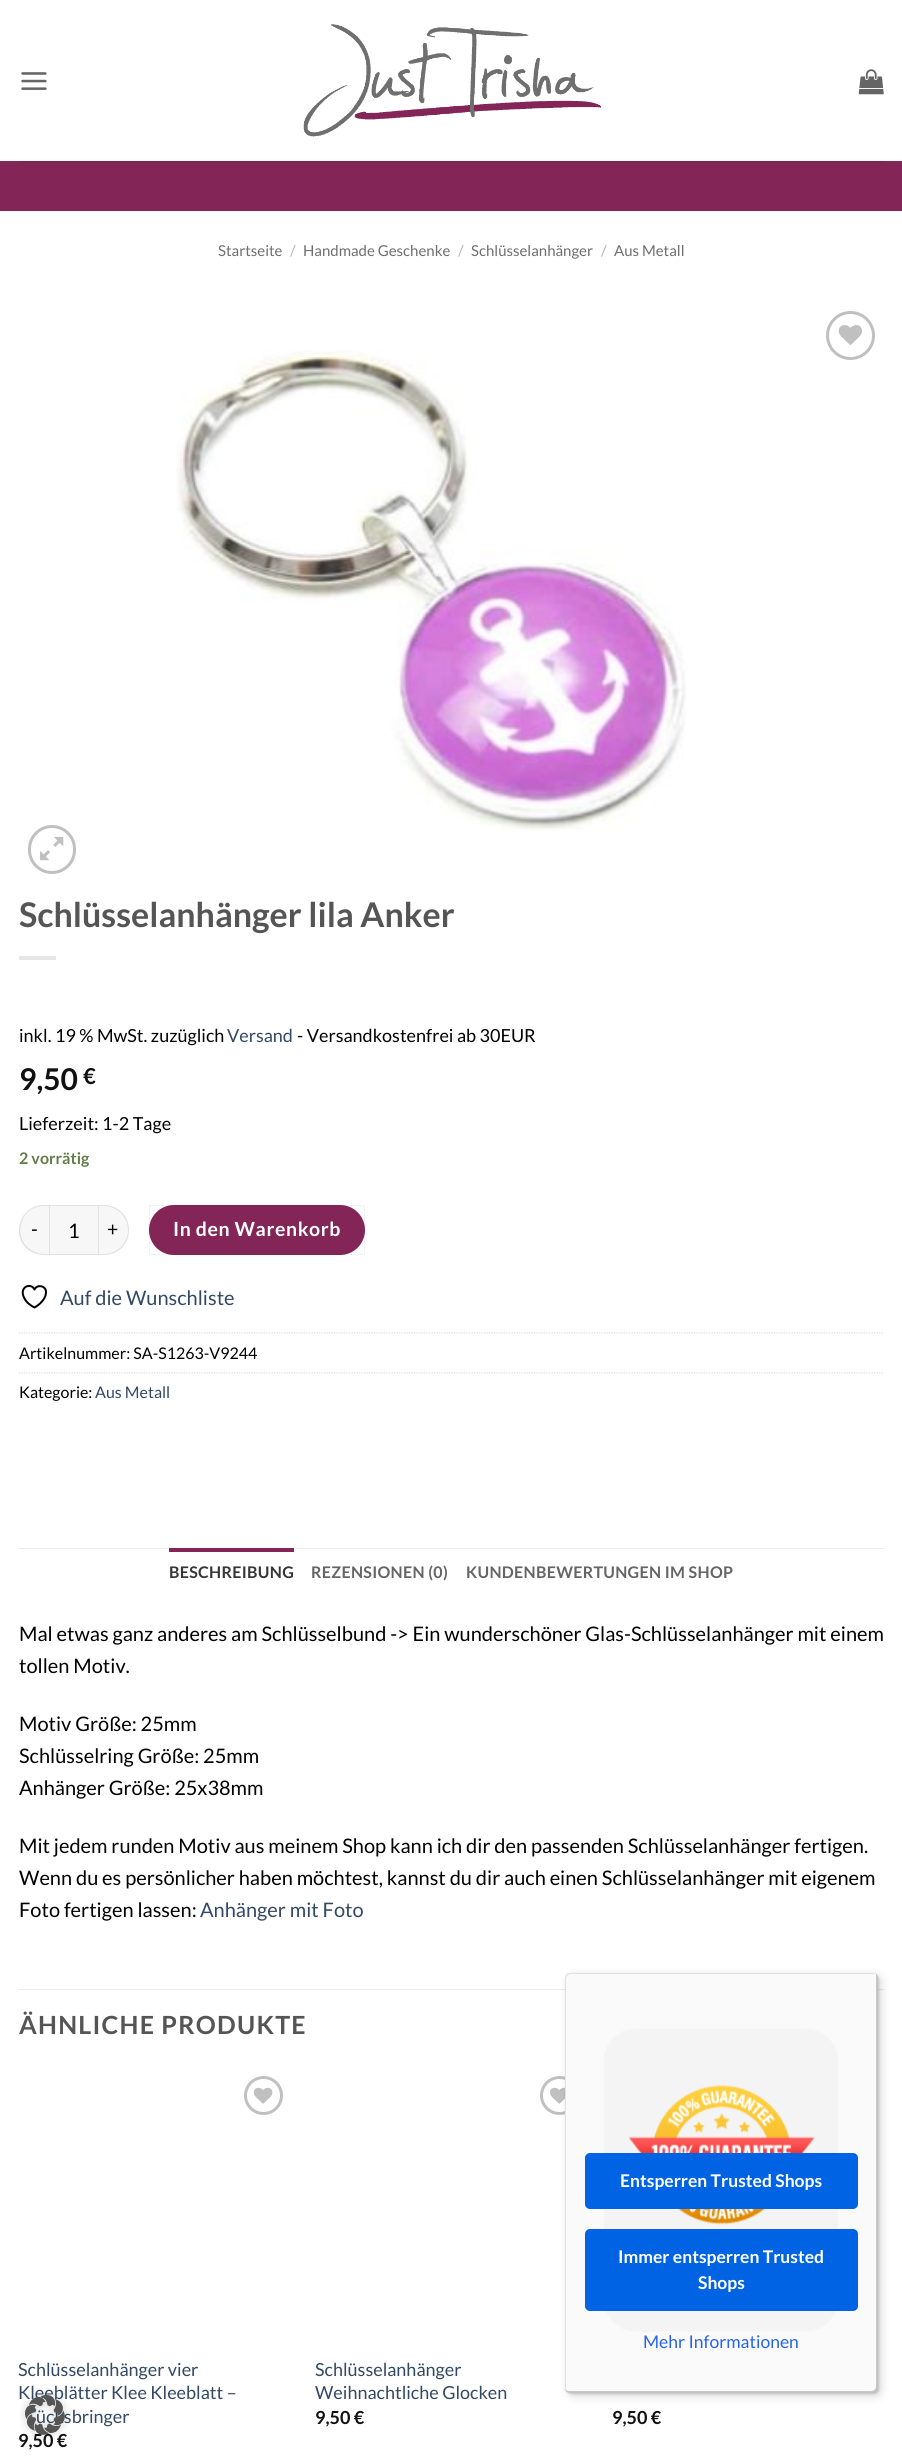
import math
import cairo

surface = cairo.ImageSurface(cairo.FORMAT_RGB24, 902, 2459)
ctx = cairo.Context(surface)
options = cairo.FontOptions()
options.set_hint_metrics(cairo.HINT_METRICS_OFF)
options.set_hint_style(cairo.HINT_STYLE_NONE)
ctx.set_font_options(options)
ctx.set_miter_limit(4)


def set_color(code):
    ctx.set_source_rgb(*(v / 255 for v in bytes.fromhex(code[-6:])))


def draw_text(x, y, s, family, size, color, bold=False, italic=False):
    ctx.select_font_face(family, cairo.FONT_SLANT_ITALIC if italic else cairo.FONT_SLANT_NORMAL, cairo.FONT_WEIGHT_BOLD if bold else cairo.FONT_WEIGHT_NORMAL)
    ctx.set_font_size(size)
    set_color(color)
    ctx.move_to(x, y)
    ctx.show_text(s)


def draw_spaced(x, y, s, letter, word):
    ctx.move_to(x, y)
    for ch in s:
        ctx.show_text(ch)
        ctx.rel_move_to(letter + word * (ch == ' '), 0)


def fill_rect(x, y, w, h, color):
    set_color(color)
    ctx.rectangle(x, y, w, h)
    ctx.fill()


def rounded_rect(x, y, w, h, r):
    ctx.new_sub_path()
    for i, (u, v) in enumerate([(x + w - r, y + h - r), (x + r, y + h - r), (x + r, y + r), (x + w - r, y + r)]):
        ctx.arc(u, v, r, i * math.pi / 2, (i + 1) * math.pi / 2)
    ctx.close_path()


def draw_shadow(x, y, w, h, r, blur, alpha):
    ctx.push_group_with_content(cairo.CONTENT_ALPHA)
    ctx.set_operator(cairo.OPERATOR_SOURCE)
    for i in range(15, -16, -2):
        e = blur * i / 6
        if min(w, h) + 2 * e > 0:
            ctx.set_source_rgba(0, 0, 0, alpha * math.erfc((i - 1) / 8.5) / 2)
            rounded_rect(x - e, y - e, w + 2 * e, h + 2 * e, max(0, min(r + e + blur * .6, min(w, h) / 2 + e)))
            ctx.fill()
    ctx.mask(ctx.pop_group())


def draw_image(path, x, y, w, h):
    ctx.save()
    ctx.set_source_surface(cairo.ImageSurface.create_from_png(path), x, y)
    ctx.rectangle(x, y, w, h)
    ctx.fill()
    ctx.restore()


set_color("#ffffff")
ctx.paint()
draw_image("assets/img1.png", 21, 72, 26, 18)
draw_image("assets/img2.png", 303, 24, 299, 113)
draw_image("assets/img3.png", 858, 69, 26, 26)
fill_rect(0, 161, 902, 50, "#842558")
fill_rect(19, 161, 865, 1, "#77214f")
draw_text(218, 256, "Startseite", "Lato", 15, "#6e6e6e")
draw_text(290, 256, "/", "Lato", 15, "#b2b2b2")
draw_text(303, 256, "Handmade Geschenke", "Lato", 15, "#6e6e6e")
draw_text(458, 256, "/", "Lato", 15, "#b2b2b2")
draw_text(471, 256, "Schlüsselanhänger", "Lato", 15, "#6e6e6e")
draw_text(601, 256, "/", "Lato", 15, "#b2b2b2")
draw_text(614, 256, "Aus Metall", "Lato", 15, "#6e6e6e")
ctx.new_path()
ctx.arc(850.5, 335.5, 23, 0, 2 * math.pi)
set_color("#c0c0c0")
ctx.set_line_width(3)
ctx.stroke()
draw_image("assets/img4.png", 838, 325, 24, 20)
draw_image("assets/img5.png", 176, 350, 510, 481)
rounded_rect(29.5, 826.5, 45, 46, 22.5)
ctx.stroke()
draw_image("assets/img6.png", 40, 836, 24, 25)
draw_text(19, 927, "Schlüsselanhänger lila Anker", "Lato", 34, "#555555", bold=True)
fill_rect(19, 956, 37, 4, "#e6e6e6")
draw_text(19, 1042, "inkl. 19 % MwSt. zuzüglich", "Lato", 18, "#000000")
draw_text(227, 1042, "Versand", "Lato", 18, "#334862")
draw_text(297, 1042, "- Versandkostenfrei ab 30EUR", "Lato", 18, "#000000")
draw_text(19, 1090, "9,50", "Lato", 30, "#111111", bold=True)
draw_text(83, 1084, "€", "Lato", 22, "#111111", bold=True)
draw_text(19, 1130, "Lieferzeit: 1-2 Tage", "Lato", 18, "#000000")
draw_text(19, 1164, "2 vorrätig", "Lato", 16, "#627d47", bold=True)
set_color("#f7f7f7")
ctx.new_path()
ctx.move_to(44, 1205)
ctx.line_to(49, 1205)
ctx.line_to(49, 1255)
ctx.line_to(44, 1255)
ctx.curve_to(30, 1255, 19, 1244, 19, 1230)
ctx.curve_to(19, 1216, 30, 1205, 44, 1205)
ctx.close_path()
ctx.fill()
ctx.set_source_rgba(0, 0, 0, 0.09)
ctx.set_fill_rule(cairo.FILL_RULE_EVEN_ODD)
ctx.new_path()
ctx.move_to(44, 1205)
ctx.line_to(49, 1205)
ctx.line_to(49, 1255)
ctx.curve_to(44, 1255, 39, 1255, 34, 1253)
ctx.curve_to(9, 1243, 17, 1205, 44, 1205)
ctx.close_path()
ctx.move_to(44, 1206)
ctx.line_to(49, 1206)
ctx.line_to(49, 1254)
ctx.curve_to(44, 1254, 39, 1254, 35, 1252)
ctx.curve_to(11, 1242, 18, 1206, 44, 1206)
ctx.close_path()
ctx.fill()
ctx.select_font_face("Lato")
ctx.set_font_size(19.5)
set_color("#000000")
draw_spaced(31, 1236, "-", 0.6, 0)
set_color("#f7f7f7")
ctx.rectangle(49.5, 1205.5, 49, 49)
ctx.fill_preserve()
set_color("#e1e1e1")
ctx.set_line_width(1)
ctx.stroke()
draw_text(68, 1238, "1", "Lato", 20, "#000000")
set_color("#f7f7f7")
ctx.new_path()
ctx.move_to(99, 1205)
ctx.line_to(104, 1205)
ctx.curve_to(118, 1205, 129, 1216, 129, 1230)
ctx.curve_to(129, 1244, 118, 1255, 104, 1255)
ctx.line_to(99, 1255)
ctx.close_path()
ctx.fill()
ctx.set_source_rgba(0, 0, 0, 0.09)
ctx.new_path()
ctx.move_to(99, 1205)
ctx.line_to(104, 1205)
ctx.curve_to(118, 1205, 129, 1216, 129, 1230)
ctx.curve_to(129, 1244, 118, 1255, 104, 1255)
ctx.line_to(99, 1255)
ctx.close_path()
ctx.move_to(99, 1206)
ctx.line_to(104, 1206)
ctx.curve_to(117, 1206, 128, 1217, 128, 1230)
ctx.curve_to(128, 1243, 117, 1254, 104, 1254)
ctx.line_to(99, 1254)
ctx.close_path()
ctx.fill()
ctx.set_font_size(19.5)
set_color("#000000")
draw_spaced(107, 1236, "+", 0.6, 0)
set_color("#842558")
rounded_rect(149, 1205, 216, 50, 25)
ctx.fill()
ctx.rectangle(149.5, 1205.5, 215, 49)
ctx.set_source_rgba(0, 0, 0, 0.05)
ctx.stroke()
ctx.select_font_face("Lato", cairo.FONT_SLANT_NORMAL, cairo.FONT_WEIGHT_BOLD)
set_color("#ffffff")
draw_spaced(173, 1236, "In den Warenkorb", 0.6, 0)
draw_text(60, 1305, "Auf die Wunschliste", "Lato", 20, "#334862")
ctx.new_path()
ctx.move_to(46, 1292)
ctx.curve_to(46, 1285.5, 37, 1284, 34.5, 1289.5)
ctx.curve_to(31, 1282, 18, 1287, 24.5, 1298.5)
ctx.curve_to(26.5, 1302.5, 30.5, 1305.5, 34.5, 1307.5)
ctx.curve_to(34.5, 1307.5, 46, 1301.5, 46, 1292)
ctx.close_path()
set_color("#000000")
ctx.set_line_width(2)
ctx.set_line_cap(cairo.LINE_CAP_ROUND)
ctx.set_line_join(cairo.LINE_JOIN_ROUND)
ctx.stroke()
ctx.new_path()
ctx.move_to(19, 1333)
ctx.line_to(884, 1333)
set_color("#dddddd")
ctx.set_line_width(1.2)
ctx.set_line_cap(cairo.LINE_CAP_BUTT)
ctx.set_line_join(cairo.LINE_JOIN_MITER)
ctx.set_dash([1.25, 1.25])
ctx.stroke()
draw_text(19, 1359, "Artikelnummer: SA-S1263-V9244", "Lato", 16, "#000000")
ctx.new_path()
ctx.move_to(19, 1373)
ctx.line_to(884, 1373)
set_color("#dddddd")
ctx.stroke()
draw_text(19, 1398, "Kategorie:", "Lato", 16, "#000000")
draw_text(95, 1398, "Aus Metall", "Lato", 16, "#334862")
fill_rect(19, 1548, 865, 1, "#ececec")
fill_rect(169, 1548, 125, 4, "#842558")
ctx.select_font_face("Lato", cairo.FONT_SLANT_NORMAL, cairo.FONT_WEIGHT_BOLD)
set_color("#363636")
draw_spaced(169, 1578, "BESCHREIBUNG", 0.3, 0)
set_color("#656565")
draw_spaced(311, 1578, "REZENSIONEN (0)", 0.3, 0)
draw_spaced(466, 1578, "KUNDENBEWERTUNGEN IM SHOP", 0.3, 0)
draw_text(19, 1641, "Mal etwas ganz anderes am Schlüsselbund -> Ein wunderschöner Glas-Schlüsselanhänger mit einem", "Lato", 20, "#000000")
draw_text(19, 1673, "tollen Motiv.", "Lato", 20, "#000000")
draw_text(19, 1731, "Motiv Größe: 25mm", "Lato", 20, "#000000")
draw_text(19, 1763, "Schlüsselring Größe: 25mm", "Lato", 20, "#000000")
draw_text(19, 1795, "Anhänger Größe: 25x38mm", "Lato", 20, "#000000")
draw_text(19, 1853, "Mit jedem runden Motiv aus meinem Shop kann ich dir den passenden Schlüsselanhänger fertigen.", "Lato", 20, "#000000")
draw_text(19, 1885, "Wenn du es persönlicher haben möchtest, kannst du dir auch einen Schlüsselanhänger mit eigenem", "Lato", 20, "#000000")
draw_text(19, 1917, "Foto fertigen lassen:", "Lato", 20, "#000000")
draw_text(200, 1917, "Anhänger mit Foto", "Lato", 20, "#334862")
fill_rect(19, 1989, 865, 1, "#ececec")
ctx.select_font_face("Lato", cairo.FONT_SLANT_NORMAL, cairo.FONT_WEIGHT_BOLD)
ctx.set_font_size(25)
set_color("#555555")
draw_spaced(19, 2034, "ÄHNLICHE PRODUKTE", 1.25, 0)
ctx.new_path()
ctx.arc(263.5, 2095.5, 18, 0, 2 * math.pi)
set_color("#c0c0c0")
ctx.set_line_width(3)
ctx.set_dash([])
ctx.stroke()
draw_image("assets/img7.png", 253, 2087, 20, 17)
draw_text(18, 2376, "Schlüsselanhänger vier", "Lato", 18, "#334862")
draw_text(18, 2399, "Kleeblätter Klee Kleeblatt –", "Lato", 18, "#334862")
draw_text(36, 2423, "ücksbringer", "Lato", 18, "#334862")
draw_text(18, 2447, "9,50 €", "Lato", 18, "#111111", bold=True)
ctx.new_path()
ctx.arc(559.5, 2095.5, 18, 0, 2 * math.pi)
set_color("#c0c0c0")
ctx.stroke()
draw_image("assets/img8.png", 550, 2087, 15, 17)
draw_text(315, 2376, "Schlüsselanhänger", "Lato", 18, "#334862")
draw_text(315, 2399, "Weihnachtliche Glocken", "Lato", 18, "#334862")
draw_text(315, 2424, "9,50 €", "Lato", 18, "#111111", bold=True)
draw_text(612, 2424, "9,50 €", "Lato", 18, "#111111", bold=True)
set_color("#000000")
draw_shadow(569, 1976, 312, 420, 5, 5, 0.15)
draw_shadow(566, 1974, 313, 420, 5, 1, 0.15)
set_color("#fafafa")
rounded_rect(565, 1973, 313, 420, 5)
ctx.fill()
ctx.set_source_rgba(0, 0, 0, 0.1)
ctx.set_fill_rule(cairo.FILL_RULE_WINDING)
ctx.new_path()
ctx.move_to(571, 1974)
ctx.line_to(874, 1974)
ctx.line_to(877, 1975)
ctx.curve_to(876, 1974, 874, 1973, 873, 1973)
ctx.line_to(570, 1973)
ctx.curve_to(567, 1973, 565, 1975, 565, 1978)
ctx.line_to(565, 2388)
ctx.curve_to(565, 2389, 566, 2391, 567, 2392)
ctx.line_to(566, 2389)
ctx.line_to(566, 1979)
ctx.curve_to(566, 1976, 568, 1974, 571, 1974)
ctx.close_path()
ctx.fill()
ctx.set_source_rgba(0, 0, 0, 0.2)
ctx.new_path()
ctx.move_to(565, 2389)
ctx.curve_to(566, 2392, 568, 2393, 570, 2393)
ctx.line_to(873, 2393)
ctx.curve_to(876, 2393, 878, 2391, 878, 2388)
ctx.line_to(878, 1978)
ctx.curve_to(878, 1976, 877, 1975, 876, 1974)
ctx.line_to(876, 1976)
ctx.line_to(876, 2386)
ctx.curve_to(876, 2389, 874, 2391, 871, 2391)
ctx.line_to(569, 2391)
ctx.curve_to(567, 2391, 566, 2390, 565, 2389)
ctx.close_path()
ctx.fill()
ctx.set_source_rgba(0.196, 0.196, 0.196, 0.2)
ctx.new_path()
ctx.move_to(566, 2391)
ctx.curve_to(567, 2392, 569, 2393, 570, 2393)
ctx.line_to(873, 2393)
ctx.curve_to(876, 2393, 878, 2391, 878, 2388)
ctx.line_to(878, 1978)
ctx.curve_to(878, 1977, 877, 1975, 876, 1974)
ctx.line_to(877, 1977)
ctx.line_to(877, 2387)
ctx.curve_to(877, 2390, 875, 2392, 872, 2392)
ctx.line_to(569, 2392)
ctx.close_path()
ctx.fill()
ctx.set_source_rgba(1, 1, 1, 0.3)
ctx.new_path()
ctx.move_to(566, 2391)
ctx.curve_to(567, 2392, 568, 2393, 570, 2393)
ctx.line_to(873, 2393)
ctx.curve_to(876, 2393, 878, 2391, 878, 2388)
ctx.line_to(878, 1978)
ctx.curve_to(878, 1977, 877, 1975, 876, 1974)
ctx.line_to(877, 1977)
ctx.line_to(877, 2387)
ctx.curve_to(877, 2390, 875, 2392, 872, 2392)
ctx.line_to(569, 2392)
ctx.curve_to(568, 2392, 567, 2391, 566, 2391)
ctx.close_path()
ctx.fill()
draw_image("assets/img9.png", 604, 2028, 234, 304)
set_color("#0063e3")
rounded_rect(585, 2153, 273, 56, 5)
ctx.fill()
draw_text(620, 2187, "Entsperren Trusted Shops", "Lato", 17.5, "#ffffff", bold=True)
set_color("#0063e3")
rounded_rect(585, 2229, 273, 82, 5)
ctx.fill()
draw_text(618, 2263, "Immer entsperren Trusted", "Lato", 17.5, "#ffffff", bold=True)
draw_text(698, 2289, "Shops", "Lato", 17.5, "#ffffff", bold=True)
draw_text(643, 2348, "Mehr Informationen", "Lato", 17.5, "#2563eb")
draw_image("assets/img10.png", 20, 2390, 50, 50)
surface.write_to_png("output.png")
